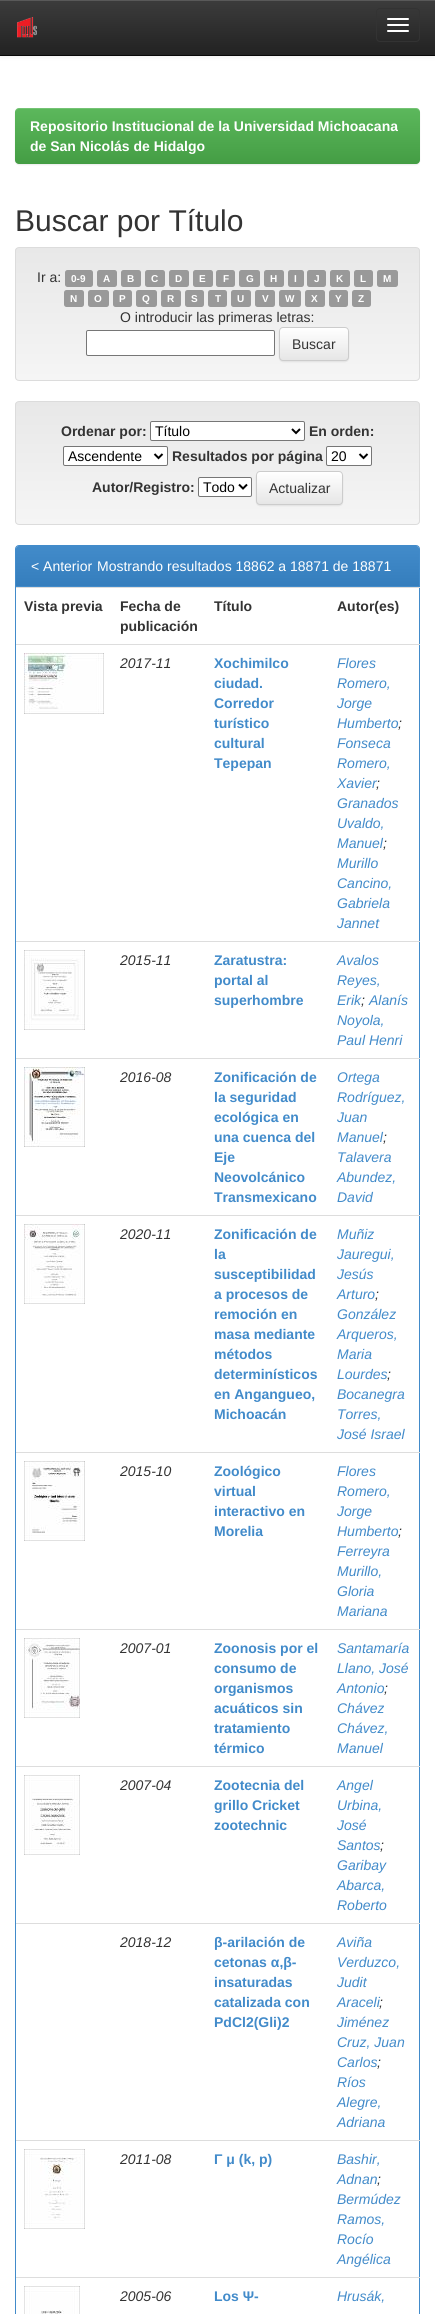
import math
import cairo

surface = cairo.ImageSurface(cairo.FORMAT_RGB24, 435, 2314)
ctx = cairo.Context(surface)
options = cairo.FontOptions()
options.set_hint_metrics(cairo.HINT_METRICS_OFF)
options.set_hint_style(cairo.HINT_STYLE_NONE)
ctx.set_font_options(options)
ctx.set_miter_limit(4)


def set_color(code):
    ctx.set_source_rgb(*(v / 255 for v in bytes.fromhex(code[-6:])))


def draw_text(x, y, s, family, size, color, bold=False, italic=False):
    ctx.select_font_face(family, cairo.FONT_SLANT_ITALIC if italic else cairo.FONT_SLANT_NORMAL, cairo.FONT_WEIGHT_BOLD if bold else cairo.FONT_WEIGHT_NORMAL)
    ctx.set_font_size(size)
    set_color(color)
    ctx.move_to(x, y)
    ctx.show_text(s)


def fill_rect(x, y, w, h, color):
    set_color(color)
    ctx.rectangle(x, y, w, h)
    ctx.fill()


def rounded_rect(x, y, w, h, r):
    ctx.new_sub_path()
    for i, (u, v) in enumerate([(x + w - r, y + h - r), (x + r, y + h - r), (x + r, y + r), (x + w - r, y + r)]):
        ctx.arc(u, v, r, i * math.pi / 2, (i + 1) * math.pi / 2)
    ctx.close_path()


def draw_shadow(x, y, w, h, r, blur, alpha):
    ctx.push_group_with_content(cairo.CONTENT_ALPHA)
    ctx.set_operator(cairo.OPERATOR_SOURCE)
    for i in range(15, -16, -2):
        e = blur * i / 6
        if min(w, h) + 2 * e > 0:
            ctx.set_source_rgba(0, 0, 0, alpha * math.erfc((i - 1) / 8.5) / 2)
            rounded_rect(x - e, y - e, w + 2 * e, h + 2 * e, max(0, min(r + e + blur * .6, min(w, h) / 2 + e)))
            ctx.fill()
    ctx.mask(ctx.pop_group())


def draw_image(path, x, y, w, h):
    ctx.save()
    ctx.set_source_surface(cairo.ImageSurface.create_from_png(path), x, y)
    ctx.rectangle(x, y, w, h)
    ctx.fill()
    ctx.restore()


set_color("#ffffff")
ctx.paint()
set_color("#000000")
draw_shadow(0, 1, 435, 56, 0, 2.5, 0.07)
gradient = cairo.LinearGradient(218, 0, 218, 55)
gradient.add_color_stop_rgba(0, 0.235, 0.235, 0.235, 1)
gradient.add_color_stop_rgba(1, 0.133, 0.133, 0.133, 1)
ctx.set_source(gradient)
ctx.rectangle(0, 1, 435, 54)
ctx.fill()
fill_rect(0, 0, 435, 1, "#595959")
fill_rect(0, 55, 435, 1, "#080808")
draw_image("assets/img1.png", 17, 17, 20, 21)
rounded_rect(376.5, 8.5, 43, 33, 3.5)
set_color("#333333")
ctx.set_line_width(1)
ctx.stroke()
set_color("#ffffff")
rounded_rect(387, 18, 22, 2, 1)
ctx.fill()
rounded_rect(387, 24, 22, 2, 1)
ctx.fill()
rounded_rect(387, 30, 22, 2, 1)
ctx.fill()
set_color("#000000")
draw_shadow(15, 109, 405, 56, 4, 0.5, 0.07)
gradient = cairo.LinearGradient(218, 108, 218, 164)
gradient.add_color_stop_rgba(0, 0.361, 0.722, 0.361, 1)
gradient.add_color_stop_rgba(1, 0.267, 0.616, 0.267, 1)
ctx.set_source(gradient)
rounded_rect(15, 108, 405, 56, 4)
ctx.fill()
ctx.set_source_rgba(1, 1, 1, 0.15)
ctx.new_path()
ctx.move_to(19, 109)
ctx.line_to(416, 109)
ctx.curve_to(418, 109, 420, 111, 420, 113)
ctx.curve_to(420, 110, 419, 108, 416, 108)
ctx.line_to(19, 108)
ctx.curve_to(16, 108, 15, 110, 15, 113)
ctx.curve_to(15, 111, 17, 109, 19, 109)
ctx.close_path()
ctx.fill()
draw_text(30, 131, "Repositorio Institucional de la Universidad Michoacana", "Liberation Sans", 14, "#ffffff", bold=True)
draw_text(30, 151, "de San Nicolás de Hidalgo", "Liberation Sans", 14, "#ffffff", bold=True)
draw_text(15, 231, "Buscar por Título", "Liberation Sans", 30, "#333333")
ctx.save()
rounded_rect(15, 247, 405, 134, 4)
ctx.clip()
gradient = cairo.LinearGradient(218, 248, 218, 380)
gradient.add_color_stop_rgba(0, 0.91, 0.91, 0.91, 1)
gradient.add_color_stop_rgba(1, 0.961, 0.961, 0.961, 1)
ctx.set_source(gradient)
ctx.rectangle(15, 248, 405, 132)
ctx.fill()
ctx.restore()
rounded_rect(15.5, 247.5, 404, 133, 3.5)
set_color("#dcdcdc")
ctx.stroke()
draw_text(37, 282, "Ir a:", "Liberation Sans", 14, "#333333")
set_color("#999999")
rounded_rect(65, 270, 28, 17, 2.5)
ctx.fill()
draw_text(71, 282, "0-9", "Liberation Sans", 10, "#ffffff", bold=True)
set_color("#999999")
rounded_rect(97, 270, 20, 17, 2.5)
ctx.fill()
draw_text(103, 282, "A", "Liberation Sans", 10, "#ffffff", bold=True)
set_color("#999999")
rounded_rect(121, 270, 20, 17, 2.5)
ctx.fill()
draw_text(127, 282, "B", "Liberation Sans", 10, "#ffffff", bold=True)
set_color("#999999")
rounded_rect(145, 270, 20, 17, 2.5)
ctx.fill()
draw_text(151, 282, "C", "Liberation Sans", 10, "#ffffff", bold=True)
set_color("#999999")
rounded_rect(169, 270, 20, 17, 2.5)
ctx.fill()
draw_text(175, 282, "D", "Liberation Sans", 10, "#ffffff", bold=True)
set_color("#999999")
rounded_rect(193, 270, 20, 17, 2.5)
ctx.fill()
draw_text(199, 282, "E", "Liberation Sans", 10, "#ffffff", bold=True)
set_color("#999999")
rounded_rect(216, 270, 19, 17, 2.5)
ctx.fill()
draw_text(223, 282, "F", "Liberation Sans", 10, "#ffffff", bold=True)
set_color("#999999")
rounded_rect(239, 270, 21, 17, 2.5)
ctx.fill()
draw_text(246, 282, "G", "Liberation Sans", 10, "#ffffff", bold=True)
set_color("#999999")
rounded_rect(264, 270, 20, 17, 2.5)
ctx.fill()
draw_text(270, 282, "H", "Liberation Sans", 10, "#ffffff", bold=True)
set_color("#999999")
rounded_rect(288, 270, 16, 17, 2.5)
ctx.fill()
draw_text(294, 282, "I", "Liberation Sans", 10, "#ffffff", bold=True)
set_color("#999999")
rounded_rect(307, 270, 19, 17, 2.5)
ctx.fill()
draw_text(314, 282, "J", "Liberation Sans", 10, "#ffffff", bold=True)
set_color("#999999")
rounded_rect(330, 270, 20, 17, 2.5)
ctx.fill()
draw_text(336, 282, "K", "Liberation Sans", 10, "#ffffff", bold=True)
set_color("#999999")
rounded_rect(354, 270, 19, 17, 2.5)
ctx.fill()
draw_text(360, 282, "L", "Liberation Sans", 10, "#ffffff", bold=True)
set_color("#999999")
rounded_rect(377, 270, 21, 17, 2.5)
ctx.fill()
draw_text(383, 282, "M", "Liberation Sans", 10, "#ffffff", bold=True)
set_color("#999999")
rounded_rect(64, 290, 20, 17, 2.5)
ctx.fill()
draw_text(70, 302, "N", "Liberation Sans", 10, "#ffffff", bold=True)
set_color("#999999")
rounded_rect(88, 290, 21, 17, 2.5)
ctx.fill()
draw_text(94, 302, "O", "Liberation Sans", 10, "#ffffff", bold=True)
set_color("#999999")
rounded_rect(113, 290, 19, 17, 2.5)
ctx.fill()
draw_text(119, 302, "P", "Liberation Sans", 10, "#ffffff", bold=True)
set_color("#999999")
rounded_rect(136, 290, 21, 17, 2.5)
ctx.fill()
draw_text(142, 302, "Q", "Liberation Sans", 10, "#ffffff", bold=True)
set_color("#999999")
rounded_rect(161, 290, 20, 17, 2.5)
ctx.fill()
draw_text(167, 302, "R", "Liberation Sans", 10, "#ffffff", bold=True)
set_color("#999999")
rounded_rect(185, 290, 19, 17, 2.5)
ctx.fill()
draw_text(191, 302, "S", "Liberation Sans", 10, "#ffffff", bold=True)
set_color("#999999")
rounded_rect(208, 290, 19, 17, 2.5)
ctx.fill()
draw_text(215, 302, "T", "Liberation Sans", 10, "#ffffff", bold=True)
set_color("#999999")
rounded_rect(231, 290, 20, 17, 2.5)
ctx.fill()
draw_text(237, 302, "U", "Liberation Sans", 10, "#ffffff", bold=True)
set_color("#999999")
rounded_rect(255, 290, 20, 17, 2.5)
ctx.fill()
draw_text(262, 302, "V", "Liberation Sans", 10, "#ffffff", bold=True)
set_color("#999999")
rounded_rect(279, 290, 22, 17, 2.5)
ctx.fill()
draw_text(285, 302, "W", "Liberation Sans", 10, "#ffffff", bold=True)
set_color("#999999")
rounded_rect(305, 290, 20, 17, 2.5)
ctx.fill()
draw_text(311, 302, "X", "Liberation Sans", 10, "#ffffff", bold=True)
set_color("#999999")
rounded_rect(329, 290, 19, 17, 2.5)
ctx.fill()
draw_text(335, 302, "Y", "Liberation Sans", 10, "#ffffff", bold=True)
set_color("#999999")
rounded_rect(352, 290, 19, 17, 2.5)
ctx.fill()
draw_text(358, 302, "Z", "Liberation Sans", 10, "#ffffff", bold=True)
draw_text(120, 322, "O introducir las primeras letras:", "Liberation Sans", 14, "#333333")
set_color("#ffffff")
rounded_rect(86.5, 330.5, 188, 25, 1.5)
ctx.fill_preserve()
set_color("#767676")
ctx.stroke()
set_color("#000000")
draw_shadow(279, 328, 70, 34, 4, 0.5, 0.07)
ctx.save()
rounded_rect(279, 327, 70, 34, 4)
ctx.clip()
gradient = cairo.LinearGradient(314, 328, 314, 360)
gradient.add_color_stop_rgba(0, 1, 1, 1, 1)
gradient.add_color_stop_rgba(1, 0.902, 0.902, 0.902, 1)
ctx.set_source(gradient)
ctx.rectangle(279, 328, 70, 32)
ctx.fill()
ctx.restore()
rounded_rect(279.5, 327.5, 69, 33, 3.5)
set_color("#cccccc")
ctx.stroke()
draw_text(292, 349, "Buscar", "Liberation Sans", 14, "#333333")
ctx.save()
rounded_rect(15, 401, 405, 124, 4)
ctx.clip()
gradient = cairo.LinearGradient(218, 402, 218, 524)
gradient.add_color_stop_rgba(0, 0.91, 0.91, 0.91, 1)
gradient.add_color_stop_rgba(1, 0.961, 0.961, 0.961, 1)
ctx.set_source(gradient)
ctx.rectangle(15, 402, 405, 122)
ctx.fill()
ctx.restore()
rounded_rect(15.5, 401.5, 404, 123, 3.5)
set_color("#dcdcdc")
ctx.stroke()
draw_text(61, 436, "Ordenar por:", "Liberation Sans", 14, "#333333", bold=True)
set_color("#ffffff")
rounded_rect(150.5, 421.5, 154, 19, 1.5)
ctx.fill_preserve()
set_color("#767676")
ctx.stroke()
ctx.new_path()
ctx.move_to(292, 429)
ctx.line_to(296, 433)
ctx.line_to(300, 429)
set_color("#000000")
ctx.set_line_width(2)
ctx.stroke()
draw_text(155, 436, "Título", "Liberation Sans", 14, "#000000")
draw_text(309, 436, "En orden:", "Liberation Sans", 14, "#333333", bold=True)
set_color("#ffffff")
rounded_rect(63.5, 446.5, 104, 19, 1.5)
ctx.fill_preserve()
set_color("#767676")
ctx.set_line_width(1)
ctx.stroke()
ctx.new_path()
ctx.move_to(154.5, 454)
ctx.line_to(158.5, 458)
ctx.line_to(162.5, 454)
set_color("#000000")
ctx.set_line_width(2)
ctx.stroke()
draw_text(68, 461, "Ascendente", "Liberation Sans", 14, "#000000")
draw_text(172, 461, "Resultados por página", "Liberation Sans", 14, "#333333", bold=True)
set_color("#ffffff")
rounded_rect(326.5, 446.5, 45, 19, 1.5)
ctx.fill_preserve()
set_color("#767676")
ctx.set_line_width(1)
ctx.stroke()
ctx.new_path()
ctx.move_to(359.5, 454)
ctx.line_to(363.5, 458)
ctx.line_to(367.5, 454)
set_color("#000000")
ctx.set_line_width(2)
ctx.stroke()
draw_text(331, 461, "20", "Liberation Sans", 14, "#000000")
draw_text(92, 492, "Autor/Registro:", "Liberation Sans", 14, "#333333", bold=True)
set_color("#ffffff")
rounded_rect(198.5, 477.5, 53, 19, 1.5)
ctx.fill_preserve()
set_color("#767676")
ctx.set_line_width(1)
ctx.stroke()
ctx.new_path()
ctx.move_to(239, 484.5)
ctx.line_to(243, 488.5)
ctx.line_to(247, 484.5)
set_color("#000000")
ctx.set_line_width(2)
ctx.stroke()
draw_text(203, 492, "Todo", "Liberation Sans", 14, "#000000")
set_color("#000000")
draw_shadow(256, 472, 87, 34, 4, 0.5, 0.07)
ctx.save()
rounded_rect(256, 471, 87, 34, 4)
ctx.clip()
gradient = cairo.LinearGradient(300, 472, 300, 504)
gradient.add_color_stop_rgba(0, 1, 1, 1, 1)
gradient.add_color_stop_rgba(1, 0.902, 0.902, 0.902, 1)
ctx.set_source(gradient)
ctx.rectangle(256, 472, 87, 32)
ctx.fill()
ctx.restore()
rounded_rect(256.5, 471.5, 86, 33, 3.5)
set_color("#cccccc")
ctx.set_line_width(1)
ctx.stroke()
draw_text(269, 493, "Actualizar", "Liberation Sans", 14, "#333333")
rounded_rect(15.5, 545.5, 404, 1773, 3.5)
set_color("#428bca")
ctx.stroke()
ctx.new_path()
ctx.move_to(19, 546)
ctx.line_to(416, 546)
ctx.curve_to(417.5, 546, 419, 547.5, 419, 549)
ctx.line_to(419, 587)
ctx.line_to(16, 587)
ctx.line_to(16, 549)
ctx.curve_to(16, 547.5, 17.5, 546, 19, 546)
ctx.close_path()
ctx.fill()
gradient = cairo.LinearGradient(218, 546, 218, 586)
gradient.add_color_stop_rgba(0, 0.259, 0.545, 0.792, 1)
gradient.add_color_stop_rgba(1, 0.208, 0.494, 0.741, 1)
ctx.set_source(gradient)
ctx.new_path()
ctx.move_to(19, 546)
ctx.line_to(416, 546)
ctx.curve_to(417.5, 546, 419, 547.5, 419, 549)
ctx.line_to(419, 586)
ctx.line_to(16, 586)
ctx.line_to(16, 549)
ctx.curve_to(16, 547.5, 17.5, 546, 19, 546)
ctx.close_path()
ctx.fill()
draw_text(31, 571, "< Anterior", "Liberation Sans", 14, "#ffffff")
draw_text(97, 571, "Mostrando resultados 18862 a 18871 de 18871", "Liberation Sans", 14, "#ffffff")
draw_text(24, 611, "Vista previa", "Liberation Sans", 14, "#333333", bold=True)
draw_text(120, 611, "Fecha de", "Liberation Sans", 14, "#333333", bold=True)
draw_text(120, 631, "publicación", "Liberation Sans", 14, "#333333", bold=True)
draw_text(214, 611, "Título", "Liberation Sans", 14, "#333333", bold=True)
fill_rect(16, 587, 404, 1, "#dddddd")
draw_text(337, 611, "Autor(es)", "Liberation Sans", 14, "#333333", bold=True)
draw_image("assets/img2.png", 24, 653, 80, 61)
draw_text(120, 668, "2017-11", "Liberation Sans", 14, "#333333", italic=True)
draw_text(214, 668, "Xochimilco", "Liberation Sans", 14, "#428bca", bold=True)
draw_text(214, 688, "ciudad.", "Liberation Sans", 14, "#428bca", bold=True)
draw_text(214, 708, "Corredor", "Liberation Sans", 14, "#428bca", bold=True)
draw_text(214, 728, "turístico", "Liberation Sans", 14, "#428bca", bold=True)
draw_text(214, 748, "cultural", "Liberation Sans", 14, "#428bca", bold=True)
draw_text(214, 768, "Tepepan", "Liberation Sans", 14, "#428bca", bold=True)
fill_rect(16, 644, 404, 1, "#dddddd")
draw_text(337, 668, "Flores", "Liberation Sans", 14, "#428bca", italic=True)
draw_text(337, 688, "Romero,", "Liberation Sans", 14, "#428bca", italic=True)
draw_text(337, 708, "Jorge", "Liberation Sans", 14, "#428bca", italic=True)
draw_text(337, 728, "Humberto", "Liberation Sans", 14, "#428bca", italic=True)
draw_text(398, 728, ";", "Liberation Sans", 14, "#333333", italic=True)
draw_text(337, 748, "Fonseca", "Liberation Sans", 14, "#428bca", italic=True)
draw_text(337, 768, "Romero,", "Liberation Sans", 14, "#428bca", italic=True)
draw_text(337, 788, "Xavier", "Liberation Sans", 14, "#428bca", italic=True)
draw_text(376, 788, ";", "Liberation Sans", 14, "#333333", italic=True)
draw_text(337, 808, "Granados", "Liberation Sans", 14, "#428bca", italic=True)
draw_text(337, 828, "Uvaldo,", "Liberation Sans", 14, "#428bca", italic=True)
draw_text(337, 848, "Manuel", "Liberation Sans", 14, "#428bca", italic=True)
draw_text(383, 848, ";", "Liberation Sans", 14, "#333333", italic=True)
draw_text(337, 868, "Murillo", "Liberation Sans", 14, "#428bca", italic=True)
draw_text(337, 888, "Cancino,", "Liberation Sans", 14, "#428bca", italic=True)
draw_text(337, 908, "Gabriela", "Liberation Sans", 14, "#428bca", italic=True)
draw_text(337, 928, "Jannet", "Liberation Sans", 14, "#428bca", italic=True)
draw_image("assets/img3.png", 24, 950, 61, 80)
draw_text(120, 965, "2015-11", "Liberation Sans", 14, "#333333", italic=True)
draw_text(214, 965, "Zaratustra:", "Liberation Sans", 14, "#428bca", bold=True)
draw_text(214, 985, "portal al", "Liberation Sans", 14, "#428bca", bold=True)
draw_text(214, 1005, "superhombre", "Liberation Sans", 14, "#428bca", bold=True)
fill_rect(16, 941, 404, 1, "#dddddd")
draw_text(337, 965, "Avalos", "Liberation Sans", 14, "#428bca", italic=True)
draw_text(337, 985, "Reyes,", "Liberation Sans", 14, "#428bca", italic=True)
draw_text(337, 1005, "Erik", "Liberation Sans", 14, "#428bca", italic=True)
draw_text(361, 1005, ";", "Liberation Sans", 14, "#333333", italic=True)
draw_text(369, 1005, "Alanís", "Liberation Sans", 14, "#428bca", italic=True)
draw_text(337, 1025, "Noyola,", "Liberation Sans", 14, "#428bca", italic=True)
draw_text(337, 1045, "Paul Henri", "Liberation Sans", 14, "#428bca", italic=True)
draw_image("assets/img4.png", 24, 1067, 61, 80)
draw_text(120, 1082, "2016-08", "Liberation Sans", 14, "#333333", italic=True)
draw_text(214, 1082, "Zonificación de", "Liberation Sans", 14, "#428bca", bold=True)
draw_text(214, 1102, "la seguridad", "Liberation Sans", 14, "#428bca", bold=True)
draw_text(214, 1122, "ecológica en", "Liberation Sans", 14, "#428bca", bold=True)
draw_text(214, 1142, "una cuenca del", "Liberation Sans", 14, "#428bca", bold=True)
draw_text(214, 1162, "Eje", "Liberation Sans", 14, "#428bca", bold=True)
draw_text(214, 1182, "Neovolcánico", "Liberation Sans", 14, "#428bca", bold=True)
draw_text(214, 1202, "Transmexicano", "Liberation Sans", 14, "#428bca", bold=True)
fill_rect(16, 1058, 404, 1, "#dddddd")
draw_text(337, 1082, "Ortega", "Liberation Sans", 14, "#428bca", italic=True)
draw_text(337, 1102, "Rodríguez,", "Liberation Sans", 14, "#428bca", italic=True)
draw_text(337, 1122, "Juan", "Liberation Sans", 14, "#428bca", italic=True)
draw_text(337, 1142, "Manuel", "Liberation Sans", 14, "#428bca", italic=True)
draw_text(383, 1142, ";", "Liberation Sans", 14, "#333333", italic=True)
draw_text(337, 1162, "Talavera", "Liberation Sans", 14, "#428bca", italic=True)
draw_text(337, 1182, "Abundez,", "Liberation Sans", 14, "#428bca", italic=True)
draw_text(337, 1202, "David", "Liberation Sans", 14, "#428bca", italic=True)
draw_image("assets/img5.png", 24, 1224, 61, 80)
draw_text(120, 1239, "2020-11", "Liberation Sans", 14, "#333333", italic=True)
draw_text(214, 1239, "Zonificación de", "Liberation Sans", 14, "#428bca", bold=True)
draw_text(214, 1259, "la", "Liberation Sans", 14, "#428bca", bold=True)
draw_text(214, 1279, "susceptibilidad", "Liberation Sans", 14, "#428bca", bold=True)
draw_text(214, 1299, "a procesos de", "Liberation Sans", 14, "#428bca", bold=True)
draw_text(214, 1319, "remoción en", "Liberation Sans", 14, "#428bca", bold=True)
draw_text(214, 1339, "masa mediante", "Liberation Sans", 14, "#428bca", bold=True)
draw_text(214, 1359, "métodos", "Liberation Sans", 14, "#428bca", bold=True)
draw_text(214, 1379, "determinísticos", "Liberation Sans", 14, "#428bca", bold=True)
draw_text(214, 1399, "en Angangueo,", "Liberation Sans", 14, "#428bca", bold=True)
draw_text(214, 1419, "Michoacán", "Liberation Sans", 14, "#428bca", bold=True)
fill_rect(16, 1215, 404, 1, "#dddddd")
draw_text(337, 1239, "Muñiz", "Liberation Sans", 14, "#428bca", italic=True)
draw_text(337, 1259, "Jauregui,", "Liberation Sans", 14, "#428bca", italic=True)
draw_text(337, 1279, "Jesús", "Liberation Sans", 14, "#428bca", italic=True)
draw_text(337, 1299, "Arturo", "Liberation Sans", 14, "#428bca", italic=True)
draw_text(375, 1299, ";", "Liberation Sans", 14, "#333333", italic=True)
draw_text(337, 1319, "González", "Liberation Sans", 14, "#428bca", italic=True)
draw_text(337, 1339, "Arqueros,", "Liberation Sans", 14, "#428bca", italic=True)
draw_text(337, 1359, "Maria", "Liberation Sans", 14, "#428bca", italic=True)
draw_text(337, 1379, "Lourdes", "Liberation Sans", 14, "#428bca", italic=True)
draw_text(387, 1379, ";", "Liberation Sans", 14, "#333333", italic=True)
draw_text(337, 1399, "Bocanegra", "Liberation Sans", 14, "#428bca", italic=True)
draw_text(337, 1419, "Torres,", "Liberation Sans", 14, "#428bca", italic=True)
draw_text(337, 1439, "José Israel", "Liberation Sans", 14, "#428bca", italic=True)
draw_image("assets/img6.png", 24, 1461, 61, 80)
draw_text(120, 1476, "2015-10", "Liberation Sans", 14, "#333333", italic=True)
draw_text(214, 1476, "Zoológico", "Liberation Sans", 14, "#428bca", bold=True)
draw_text(214, 1496, "virtual", "Liberation Sans", 14, "#428bca", bold=True)
draw_text(214, 1516, "interactivo en", "Liberation Sans", 14, "#428bca", bold=True)
draw_text(214, 1536, "Morelia", "Liberation Sans", 14, "#428bca", bold=True)
fill_rect(16, 1452, 404, 1, "#dddddd")
draw_text(337, 1476, "Flores", "Liberation Sans", 14, "#428bca", italic=True)
draw_text(337, 1496, "Romero,", "Liberation Sans", 14, "#428bca", italic=True)
draw_text(337, 1516, "Jorge", "Liberation Sans", 14, "#428bca", italic=True)
draw_text(337, 1536, "Humberto", "Liberation Sans", 14, "#428bca", italic=True)
draw_text(398, 1536, ";", "Liberation Sans", 14, "#333333", italic=True)
draw_text(337, 1556, "Ferreyra", "Liberation Sans", 14, "#428bca", italic=True)
draw_text(337, 1576, "Murillo,", "Liberation Sans", 14, "#428bca", italic=True)
draw_text(337, 1596, "Gloria", "Liberation Sans", 14, "#428bca", italic=True)
draw_text(337, 1616, "Mariana", "Liberation Sans", 14, "#428bca", italic=True)
draw_image("assets/img7.png", 24, 1638, 56, 80)
draw_text(120, 1653, "2007-01", "Liberation Sans", 14, "#333333", italic=True)
draw_text(214, 1653, "Zoonosis por el", "Liberation Sans", 14, "#428bca", bold=True)
draw_text(214, 1673, "consumo de", "Liberation Sans", 14, "#428bca", bold=True)
draw_text(214, 1693, "organismos", "Liberation Sans", 14, "#428bca", bold=True)
draw_text(214, 1713, "acuáticos sin", "Liberation Sans", 14, "#428bca", bold=True)
draw_text(214, 1733, "tratamiento", "Liberation Sans", 14, "#428bca", bold=True)
draw_text(214, 1753, "térmico", "Liberation Sans", 14, "#428bca", bold=True)
fill_rect(16, 1629, 404, 1, "#dddddd")
draw_text(337, 1653, "Santamaría", "Liberation Sans", 14, "#428bca", italic=True)
draw_text(337, 1673, "Llano, José", "Liberation Sans", 14, "#428bca", italic=True)
draw_text(337, 1693, "Antonio", "Liberation Sans", 14, "#428bca", italic=True)
draw_text(384, 1693, ";", "Liberation Sans", 14, "#333333", italic=True)
draw_text(337, 1713, "Chávez", "Liberation Sans", 14, "#428bca", italic=True)
draw_text(337, 1733, "Chávez,", "Liberation Sans", 14, "#428bca", italic=True)
draw_text(337, 1753, "Manuel", "Liberation Sans", 14, "#428bca", italic=True)
draw_image("assets/img8.png", 24, 1775, 56, 80)
draw_text(120, 1790, "2007-04", "Liberation Sans", 14, "#333333", italic=True)
draw_text(214, 1790, "Zootecnia del", "Liberation Sans", 14, "#428bca", bold=True)
draw_text(214, 1810, "grillo Cricket", "Liberation Sans", 14, "#428bca", bold=True)
draw_text(214, 1830, "zootechnic", "Liberation Sans", 14, "#428bca", bold=True)
fill_rect(16, 1766, 404, 1, "#dddddd")
draw_text(337, 1790, "Angel", "Liberation Sans", 14, "#428bca", italic=True)
draw_text(337, 1810, "Urbina,", "Liberation Sans", 14, "#428bca", italic=True)
draw_text(337, 1830, "José", "Liberation Sans", 14, "#428bca", italic=True)
draw_text(337, 1850, "Santos", "Liberation Sans", 14, "#428bca", italic=True)
draw_text(380, 1850, ";", "Liberation Sans", 14, "#333333", italic=True)
draw_text(337, 1870, "Garibay", "Liberation Sans", 14, "#428bca", italic=True)
draw_text(337, 1890, "Abarca,", "Liberation Sans", 14, "#428bca", italic=True)
draw_text(337, 1910, "Roberto", "Liberation Sans", 14, "#428bca", italic=True)
draw_text(120, 1947, "2018-12", "Liberation Sans", 14, "#333333", italic=True)
draw_text(214, 1947, "β-arilación de", "Liberation Sans", 14, "#428bca", bold=True)
draw_text(214, 1967, "cetonas α,β-", "Liberation Sans", 14, "#428bca", bold=True)
draw_text(214, 1987, "insaturadas", "Liberation Sans", 14, "#428bca", bold=True)
draw_text(214, 2007, "catalizada con", "Liberation Sans", 14, "#428bca", bold=True)
draw_text(214, 2027, "PdCl2(Gli)2", "Liberation Sans", 14, "#428bca", bold=True)
fill_rect(16, 1923, 404, 1, "#dddddd")
draw_text(337, 1947, "Aviña", "Liberation Sans", 14, "#428bca", italic=True)
draw_text(337, 1967, "Verduzco,", "Liberation Sans", 14, "#428bca", italic=True)
draw_text(337, 1987, "Judit", "Liberation Sans", 14, "#428bca", italic=True)
draw_text(337, 2007, "Araceli", "Liberation Sans", 14, "#428bca", italic=True)
draw_text(379, 2007, ";", "Liberation Sans", 14, "#333333", italic=True)
draw_text(337, 2027, "Jiménez", "Liberation Sans", 14, "#428bca", italic=True)
draw_text(337, 2047, "Cruz, Juan", "Liberation Sans", 14, "#428bca", italic=True)
draw_text(337, 2067, "Carlos", "Liberation Sans", 14, "#428bca", italic=True)
draw_text(377, 2067, ";", "Liberation Sans", 14, "#333333", italic=True)
draw_text(337, 2087, "Ríos", "Liberation Sans", 14, "#428bca", italic=True)
draw_text(337, 2107, "Alegre,", "Liberation Sans", 14, "#428bca", italic=True)
draw_text(337, 2127, "Adriana", "Liberation Sans", 14, "#428bca", italic=True)
draw_image("assets/img9.png", 24, 2149, 61, 80)
draw_text(120, 2164, "2011-08", "Liberation Sans", 14, "#333333", italic=True)
draw_text(214, 2164, "Γ μ (k, p)", "Liberation Sans", 14, "#428bca", bold=True)
fill_rect(16, 2140, 404, 1, "#dddddd")
draw_text(337, 2164, "Bashir,", "Liberation Sans", 14, "#428bca", italic=True)
draw_text(337, 2184, "Adnan", "Liberation Sans", 14, "#428bca", italic=True)
draw_text(377, 2184, ";", "Liberation Sans", 14, "#333333", italic=True)
draw_text(337, 2204, "Bermúdez", "Liberation Sans", 14, "#428bca", italic=True)
draw_text(337, 2224, "Ramos,", "Liberation Sans", 14, "#428bca", italic=True)
draw_text(337, 2244, "Rocío", "Liberation Sans", 14, "#428bca", italic=True)
draw_text(337, 2264, "Angélica", "Liberation Sans", 14, "#428bca", italic=True)
draw_image("assets/img10.png", 24, 2286, 56, 28)
draw_text(120, 2301, "2005-06", "Liberation Sans", 14, "#333333", italic=True)
draw_text(214, 2301, "Los Ψ-", "Liberation Sans", 14, "#428bca", bold=True)
fill_rect(16, 2277, 404, 1, "#dddddd")
draw_text(337, 2301, "Hrusák,", "Liberation Sans", 14, "#428bca", italic=True)
surface.write_to_png("output.png")
